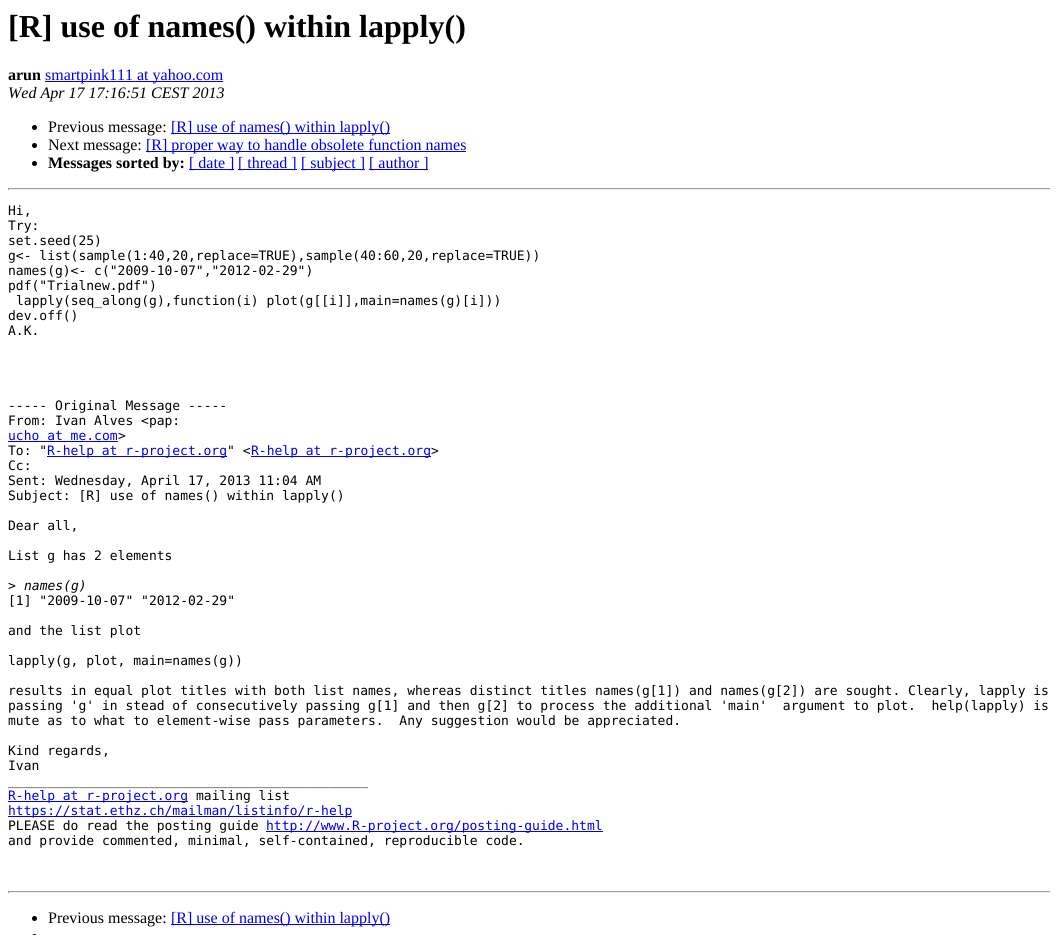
import math
import cairo

surface = cairo.ImageSurface(cairo.FORMAT_RGB24, 1059, 935)
ctx = cairo.Context(surface)
options = cairo.FontOptions()
options.set_hint_metrics(cairo.HINT_METRICS_OFF)
options.set_hint_style(cairo.HINT_STYLE_NONE)
ctx.set_font_options(options)
ctx.set_miter_limit(4)


def set_color(code):
    ctx.set_source_rgb(*(v / 255 for v in bytes.fromhex(code[-6:])))


def draw_text(x, y, s, family, size, color, bold=False, italic=False):
    ctx.select_font_face(family, cairo.FONT_SLANT_ITALIC if italic else cairo.FONT_SLANT_NORMAL, cairo.FONT_WEIGHT_BOLD if bold else cairo.FONT_WEIGHT_NORMAL)
    ctx.set_font_size(size)
    set_color(color)
    ctx.move_to(x, y)
    ctx.show_text(s)


def fill_rect(x, y, w, h, color):
    set_color(color)
    ctx.rectangle(x, y, w, h)
    ctx.fill()


def rounded_rect(x, y, w, h, r):
    ctx.new_sub_path()
    for i, (u, v) in enumerate([(x + w - r, y + h - r), (x + r, y + h - r), (x + r, y + r), (x + w - r, y + r)]):
        ctx.arc(u, v, r, i * math.pi / 2, (i + 1) * math.pi / 2)
    ctx.close_path()


set_color("#ffffff")
ctx.paint()
draw_text(8, 37, "[R] use of names() within lapply()", "Liberation Serif", 32, "#000000", bold=True)
draw_text(8, 80, "arun", "Liberation Serif", 16, "#000000", bold=True)
fill_rect(45, 81, 178, 1, "#0000ee")
draw_text(45, 80, "smartpink111 at yahoo.com", "Liberation Serif", 16, "#0000ee")
draw_text(8, 98, "Wed Apr 17 17:16:51 CEST 2013", "Liberation Serif", 16, "#000000", italic=True)
ctx.new_path()
ctx.arc(34.5, 127.5, 2.5, 0, 2 * math.pi)
ctx.fill()
draw_text(48, 132, "Previous message:", "Liberation Serif", 16, "#000000")
fill_rect(171, 133, 219, 1, "#0000ee")
draw_text(171, 132, "[R] use of names() within lapply()", "Liberation Serif", 16, "#0000ee")
set_color("#000000")
ctx.new_path()
ctx.arc(34.5, 145.5, 2.5, 0, 2 * math.pi)
ctx.fill()
draw_text(48, 150, "Next message:", "Liberation Serif", 16, "#000000")
fill_rect(146, 151, 320, 1, "#0000ee")
draw_text(146, 150, "[R] proper way to handle obsolete function names", "Liberation Serif", 16, "#0000ee")
set_color("#000000")
ctx.new_path()
ctx.arc(34.5, 163.5, 2.5, 0, 2 * math.pi)
ctx.fill()
draw_text(48, 168, "Messages sorted by:", "Liberation Serif", 16, "#000000", bold=True)
fill_rect(189, 169, 45, 1, "#0000ee")
draw_text(189, 168, "[ date ]", "Liberation Serif", 16, "#0000ee")
fill_rect(238, 169, 59, 1, "#0000ee")
draw_text(238, 168, "[ thread ]", "Liberation Serif", 16, "#0000ee")
fill_rect(301, 169, 64, 1, "#0000ee")
draw_text(301, 168, "[ subject ]", "Liberation Serif", 16, "#0000ee")
fill_rect(369, 169, 59, 1, "#0000ee")
draw_text(369, 168, "[ author ]", "Liberation Serif", 16, "#0000ee")
fill_rect(8, 188, 1043, 1, "#9f9f9f")
fill_rect(1050, 188, 1, 2, "#eeeeee")
fill_rect(8, 189, 1043, 1, "#eeeeee")
fill_rect(8, 188, 1, 2, "#9f9f9f")
draw_text(8, 215, "Hi,", "DejaVu Sans Mono", 13, "#000000")
draw_text(8, 230, "Try:", "DejaVu Sans Mono", 13, "#000000")
draw_text(8, 245, "set.seed(25)", "DejaVu Sans Mono", 13, "#000000")
draw_text(8, 260, "g<- list(sample(1:40,20,replace=TRUE),sample(40:60,20,replace=TRUE))", "DejaVu Sans Mono", 13, "#000000")
draw_text(8, 275, "names(g)<- c(\"2009-10-07\",\"2012-02-29\")", "DejaVu Sans Mono", 13, "#000000")
draw_text(8, 290, "pdf(\"Trialnew.pdf\")", "DejaVu Sans Mono", 13, "#000000")
draw_text(16, 305, "lapply(seq_along(g),function(i) plot(g[[i]],main=names(g)[i]))", "DejaVu Sans Mono", 13, "#000000")
draw_text(8, 320, "dev.off()", "DejaVu Sans Mono", 13, "#000000")
draw_text(8, 335, "A.K.", "DejaVu Sans Mono", 13, "#000000")
draw_text(8, 410, "----- Original Message -----", "DejaVu Sans Mono", 13, "#000000")
draw_text(8, 425, "From: Ivan Alves <pap:", "DejaVu Sans Mono", 13, "#000000")
draw_text(8, 440, "ucho at me.com", "DejaVu Sans Mono", 13, "#0000ee")
fill_rect(8, 441, 110, 1, "#0000ee")
draw_text(118, 440, ">", "DejaVu Sans Mono", 13, "#000000")
draw_text(8, 455, "To: \"", "DejaVu Sans Mono", 13, "#000000")
fill_rect(47, 456, 180, 1, "#0000ee")
draw_text(47, 455, "R-help at r-project.org", "DejaVu Sans Mono", 13, "#0000ee")
draw_text(227, 455, "\" <", "DejaVu Sans Mono", 13, "#000000")
fill_rect(251, 456, 180, 1, "#0000ee")
draw_text(251, 455, "R-help at r-project.org", "DejaVu Sans Mono", 13, "#0000ee")
draw_text(431, 455, ">", "DejaVu Sans Mono", 13, "#000000")
draw_text(8, 470, "Cc:", "DejaVu Sans Mono", 13, "#000000")
draw_text(8, 485, "Sent: Wednesday, April 17, 2013 11:04 AM", "DejaVu Sans Mono", 13, "#000000")
draw_text(8, 500, "Subject: [R] use of names() within lapply()", "DejaVu Sans Mono", 13, "#000000")
draw_text(8, 530, "Dear all,", "DejaVu Sans Mono", 13, "#000000")
draw_text(8, 560, "List g has 2 elements", "DejaVu Sans Mono", 13, "#000000")
draw_text(8, 590, ">", "DejaVu Sans Mono", 13, "#000000")
draw_text(24, 590, "names(g)", "DejaVu Sans Mono", 13, "#000000", italic=True)
draw_text(8, 605, "[1] \"2009-10-07\" \"2012-02-29\"", "DejaVu Sans Mono", 13, "#000000")
draw_text(8, 635, "and the list plot", "DejaVu Sans Mono", 13, "#000000")
draw_text(8, 665, "lapply(g, plot, main=names(g))", "DejaVu Sans Mono", 13, "#000000")
draw_text(8, 695, "results in equal plot titles with both list names, whereas distinct titles names(g[1]) and names(g[2]) are sought. Clearly, lapply is", "DejaVu Sans Mono", 13, "#000000")
draw_text(8, 710, "passing 'g' in stead of consecutively passing g[1] and then g[2] to process the additional 'main'  argument to plot.  help(lapply) is", "DejaVu Sans Mono", 13, "#000000")
draw_text(8, 725, "mute as to what to element-wise pass parameters.  Any suggestion would be appreciated.", "DejaVu Sans Mono", 13, "#000000")
draw_text(8, 755, "Kind regards,", "DejaVu Sans Mono", 13, "#000000")
draw_text(8, 770, "Ivan", "DejaVu Sans Mono", 13, "#000000")
draw_text(8, 785, "______________________________________________", "DejaVu Sans Mono", 13, "#000000")
fill_rect(8, 801, 180, 1, "#0000ee")
draw_text(8, 800, "R-help at r-project.org", "DejaVu Sans Mono", 13, "#0000ee")
draw_text(196, 800, "mailing list", "DejaVu Sans Mono", 13, "#000000")
fill_rect(8, 816, 344, 1, "#0000ee")
draw_text(8, 815, "https://stat.ethz.ch/mailman/listinfo/r-help", "DejaVu Sans Mono", 13, "#0000ee")
draw_text(8, 830, "PLEASE do read the posting guide", "DejaVu Sans Mono", 13, "#000000")
fill_rect(266, 831, 337, 1, "#0000ee")
draw_text(266, 830, "http://www.R-project.org/posting-guide.html", "DejaVu Sans Mono", 13, "#0000ee")
draw_text(8, 845, "and provide commented, minimal, self-contained, reproducible code.", "DejaVu Sans Mono", 13, "#000000")
fill_rect(8, 891, 1043, 1, "#9f9f9f")
fill_rect(1050, 891, 1, 2, "#eeeeee")
fill_rect(8, 892, 1043, 1, "#eeeeee")
fill_rect(8, 891, 1, 2, "#9f9f9f")
set_color("#000000")
ctx.new_path()
ctx.arc(34.5, 918.5, 2.5, 0, 2 * math.pi)
ctx.fill()
draw_text(48, 923, "Previous message:", "Liberation Serif", 16, "#000000")
fill_rect(171, 924, 219, 1, "#0000ee")
draw_text(171, 923, "[R] use of names() within lapply()", "Liberation Serif", 16, "#0000ee")
set_color("#000000")
rounded_rect(32, 934, 5, 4, 2.5)
ctx.fill()
surface.write_to_png("output.png")
